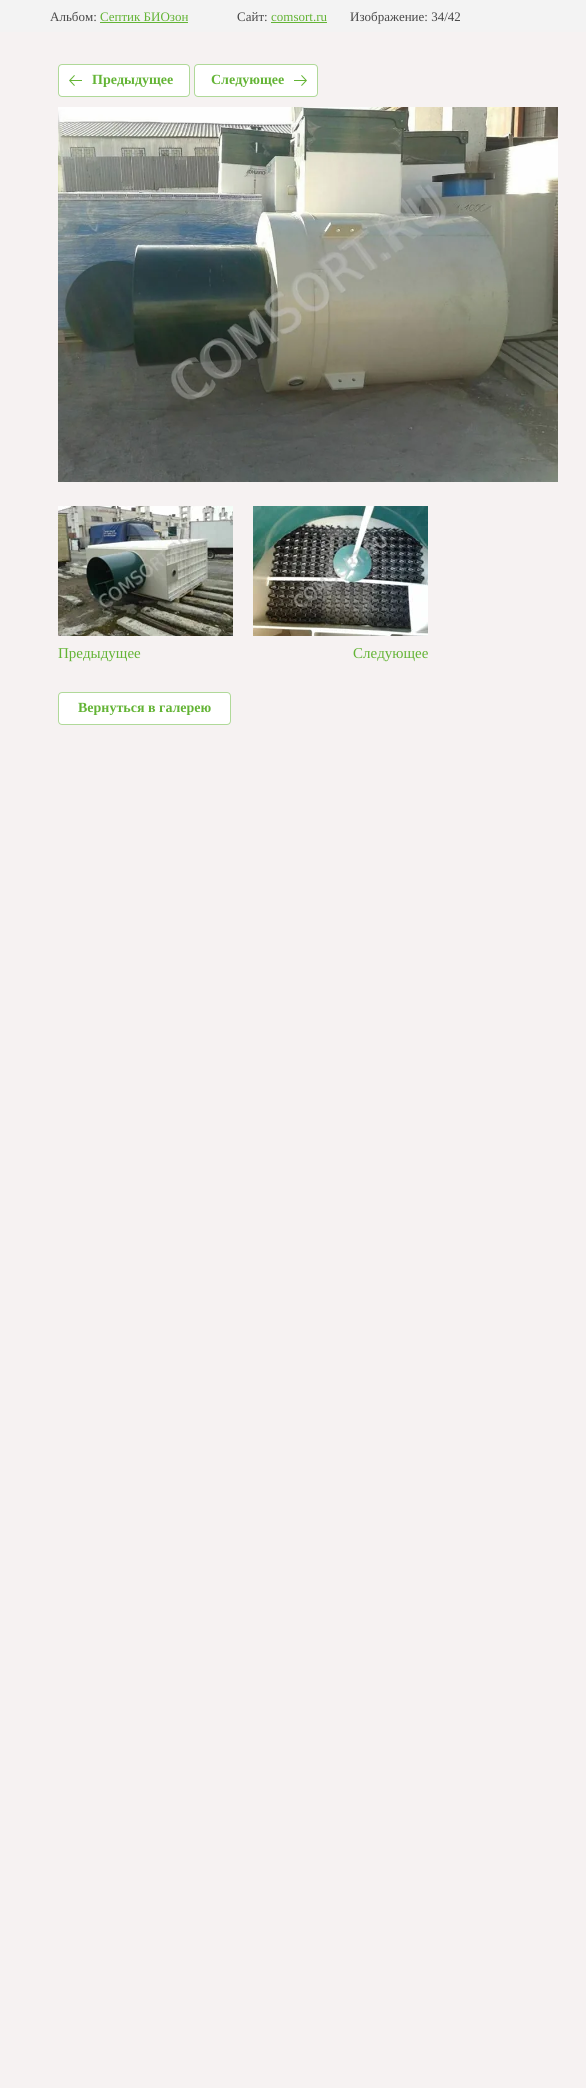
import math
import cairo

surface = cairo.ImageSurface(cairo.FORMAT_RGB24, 586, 2088)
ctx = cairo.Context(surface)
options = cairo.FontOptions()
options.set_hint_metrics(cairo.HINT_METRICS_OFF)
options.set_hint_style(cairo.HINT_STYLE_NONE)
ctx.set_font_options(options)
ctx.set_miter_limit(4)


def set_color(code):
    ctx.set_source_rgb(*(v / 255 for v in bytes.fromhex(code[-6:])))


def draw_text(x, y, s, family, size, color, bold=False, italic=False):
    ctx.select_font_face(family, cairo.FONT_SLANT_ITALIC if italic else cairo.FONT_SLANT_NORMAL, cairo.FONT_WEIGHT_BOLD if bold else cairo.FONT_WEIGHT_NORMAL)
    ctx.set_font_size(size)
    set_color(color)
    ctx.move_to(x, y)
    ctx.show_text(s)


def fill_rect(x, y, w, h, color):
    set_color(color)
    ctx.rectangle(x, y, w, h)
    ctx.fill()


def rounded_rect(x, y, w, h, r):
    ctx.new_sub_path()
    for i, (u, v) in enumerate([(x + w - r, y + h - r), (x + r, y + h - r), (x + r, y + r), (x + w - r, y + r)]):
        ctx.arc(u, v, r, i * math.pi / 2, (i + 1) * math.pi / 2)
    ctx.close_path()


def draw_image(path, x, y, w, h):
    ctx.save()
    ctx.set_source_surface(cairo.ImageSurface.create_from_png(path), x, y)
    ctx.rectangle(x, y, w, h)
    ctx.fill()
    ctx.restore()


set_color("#f6f2f2")
ctx.paint()
fill_rect(0, 0, 586, 32, "#f3f3f3")
draw_text(50, 21, "Альбом:", "Liberation Serif", 13, "#484848")
draw_text(100, 21, "Септик БИОзон", "Liberation Serif", 13, "#63b435")
fill_rect(100, 22, 88, 1, "#63b435")
draw_text(237, 21, "Сайт:", "Liberation Serif", 13, "#484848")
draw_text(271, 21, "comsort.ru", "Liberation Serif", 13, "#63b435")
fill_rect(271, 22, 56, 1, "#63b435")
draw_text(350, 21, "Изображение: 34/42", "Liberation Serif", 13, "#484848")
set_color("#ffffff")
rounded_rect(58, 64, 132, 33, 4)
ctx.fill()
rounded_rect(58.5, 64.5, 131, 32, 3.5)
ctx.set_source_rgba(0.388, 0.706, 0.208, 0.5)
ctx.set_line_width(1)
ctx.stroke()
draw_image("assets/img1.png", 69, 75, 13, 11)
draw_text(92, 84, "Предыдущее", "Liberation Serif", 14, "#63b435", bold=True)
set_color("#ffffff")
rounded_rect(194, 64, 124, 33, 4)
ctx.fill()
rounded_rect(194.5, 64.5, 123, 32, 3.5)
ctx.set_source_rgba(0.388, 0.706, 0.208, 0.5)
ctx.stroke()
draw_text(211, 84, "Следующее", "Liberation Serif", 14, "#63b435", bold=True)
draw_image("assets/img2.png", 294, 75, 13, 11)
draw_image("assets/img3.png", 58, 107, 500, 375)
draw_image("assets/img4.png", 58, 506, 175, 130)
draw_text(58, 658, "Предыдущее", "Liberation Serif", 15, "#63b435")
draw_image("assets/img5.png", 253, 506, 175, 130)
draw_text(353, 658, "Следующее", "Liberation Serif", 15, "#63b435")
set_color("#ffffff")
rounded_rect(58, 692, 173, 33, 4)
ctx.fill()
rounded_rect(58.5, 692.5, 172, 32, 3.5)
ctx.set_source_rgba(0.388, 0.706, 0.208, 0.5)
ctx.stroke()
draw_text(78, 712, "Вернуться в галерею", "Liberation Serif", 14, "#63b435", bold=True)
surface.write_to_png("output.png")
